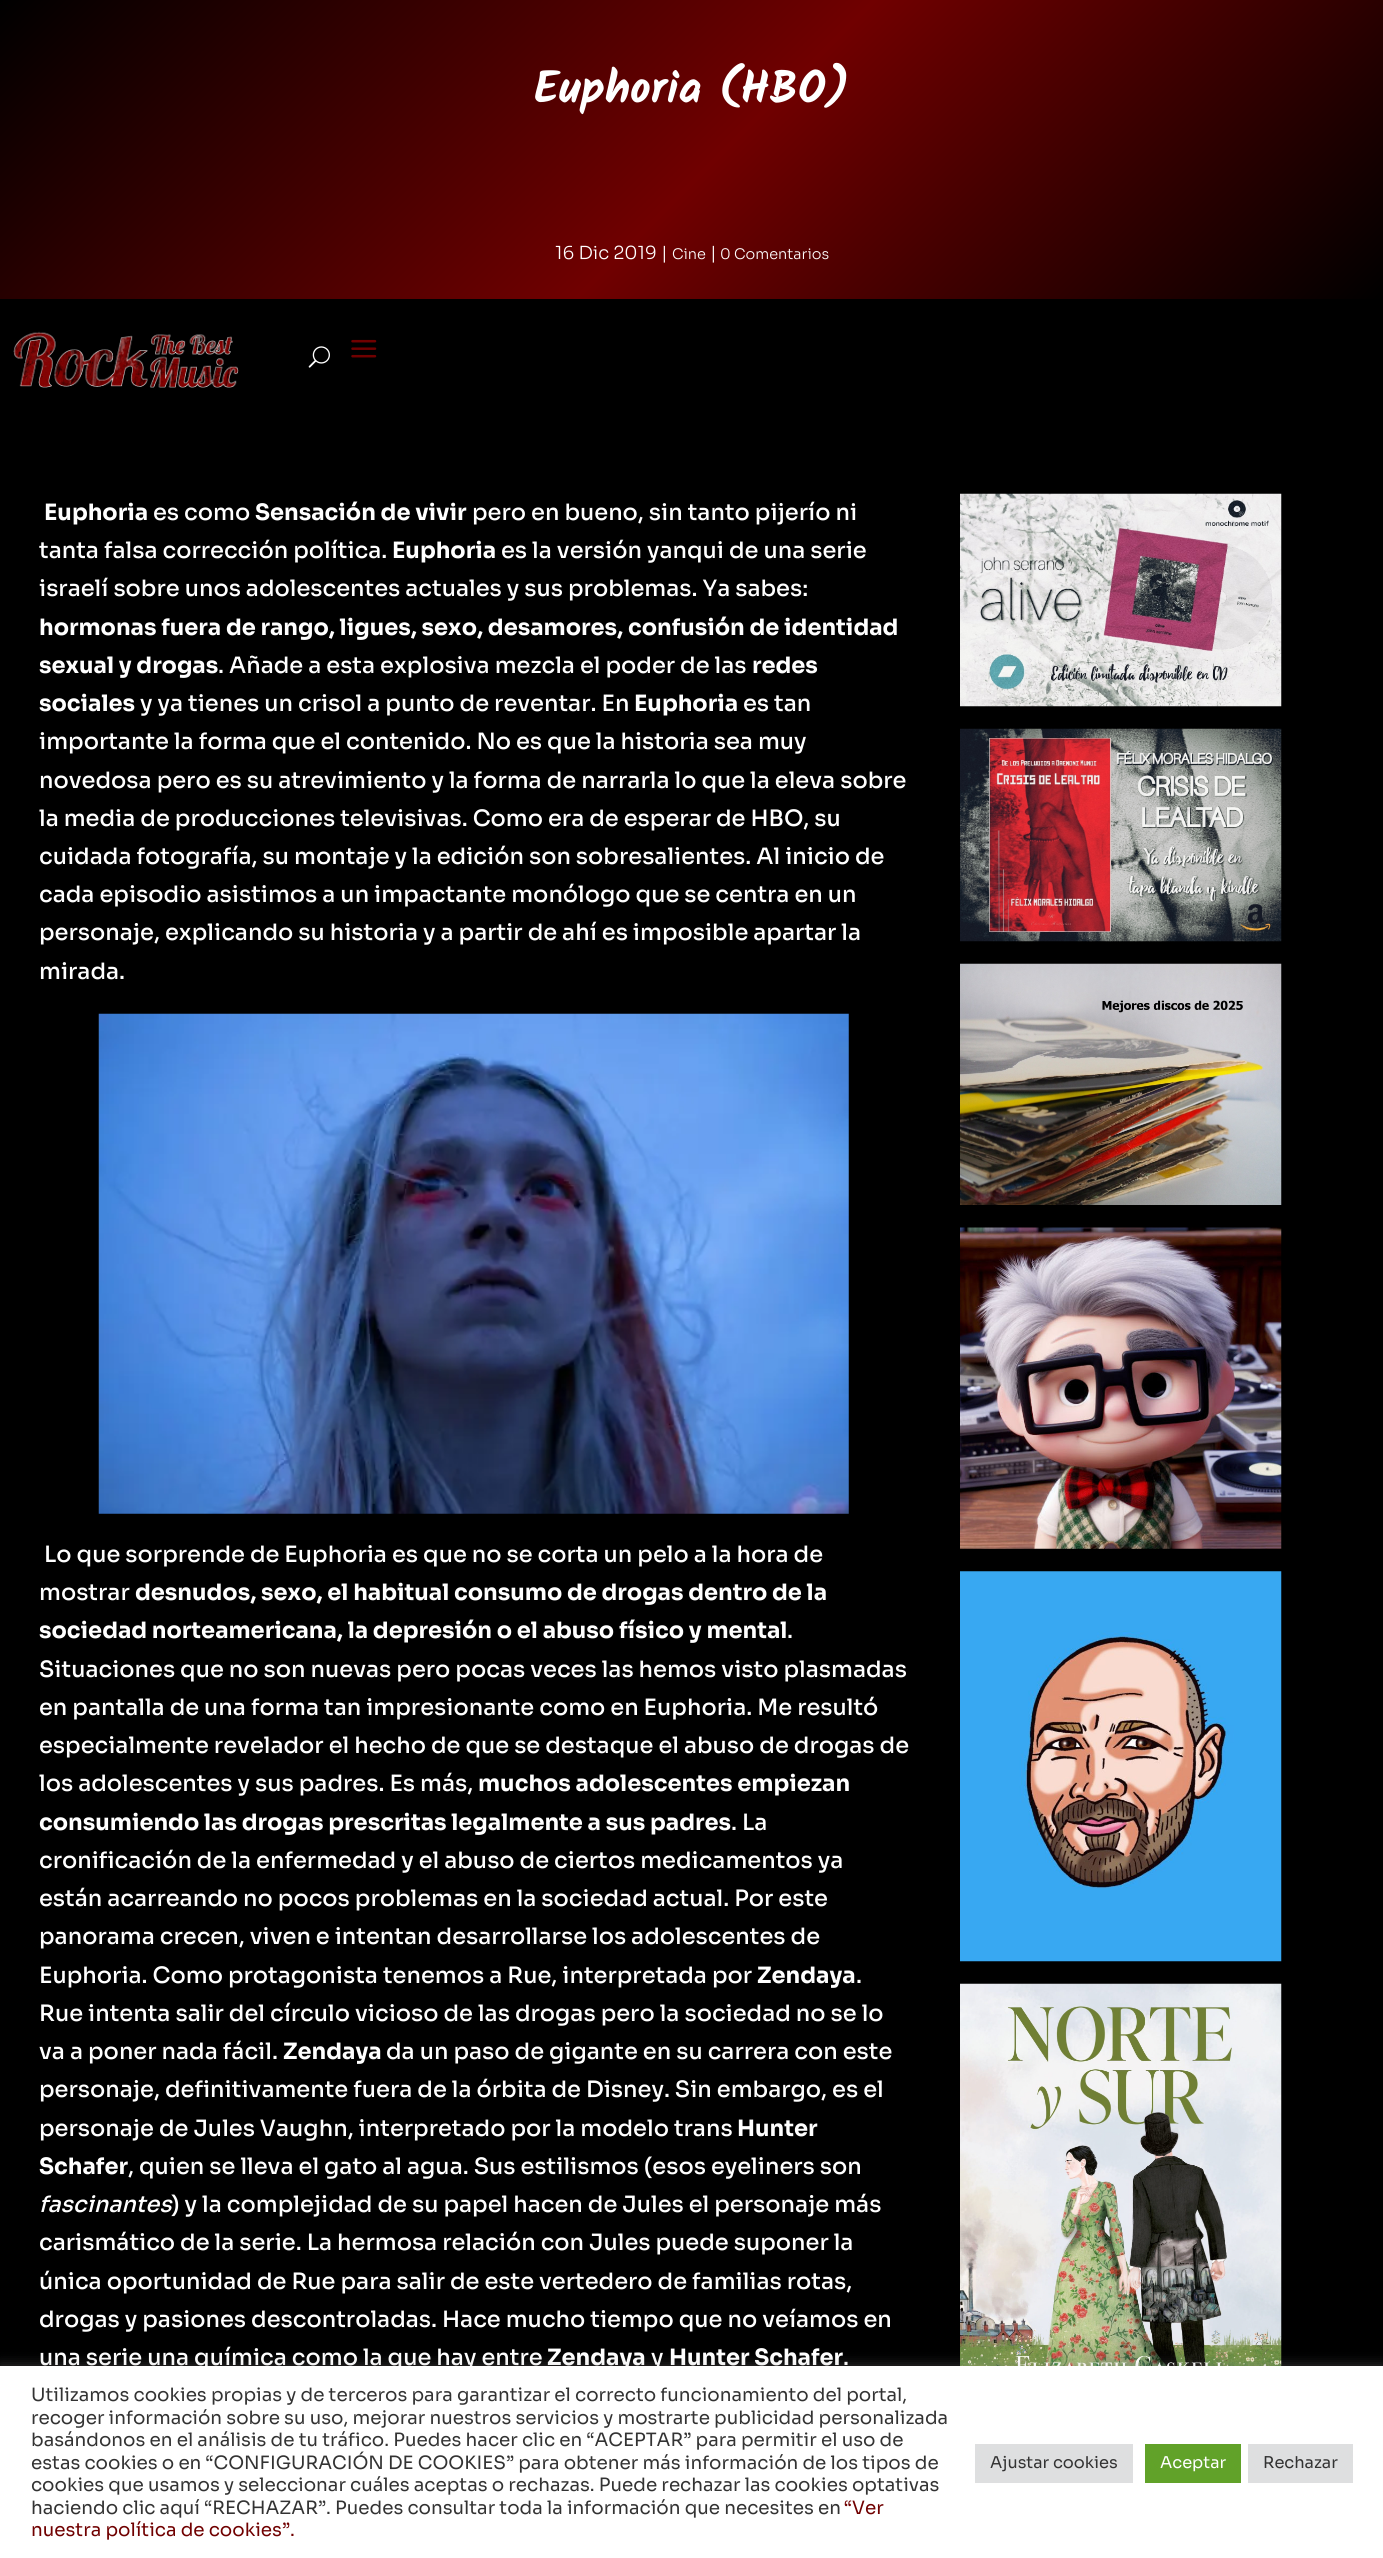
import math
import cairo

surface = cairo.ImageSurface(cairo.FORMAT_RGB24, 1383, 2558)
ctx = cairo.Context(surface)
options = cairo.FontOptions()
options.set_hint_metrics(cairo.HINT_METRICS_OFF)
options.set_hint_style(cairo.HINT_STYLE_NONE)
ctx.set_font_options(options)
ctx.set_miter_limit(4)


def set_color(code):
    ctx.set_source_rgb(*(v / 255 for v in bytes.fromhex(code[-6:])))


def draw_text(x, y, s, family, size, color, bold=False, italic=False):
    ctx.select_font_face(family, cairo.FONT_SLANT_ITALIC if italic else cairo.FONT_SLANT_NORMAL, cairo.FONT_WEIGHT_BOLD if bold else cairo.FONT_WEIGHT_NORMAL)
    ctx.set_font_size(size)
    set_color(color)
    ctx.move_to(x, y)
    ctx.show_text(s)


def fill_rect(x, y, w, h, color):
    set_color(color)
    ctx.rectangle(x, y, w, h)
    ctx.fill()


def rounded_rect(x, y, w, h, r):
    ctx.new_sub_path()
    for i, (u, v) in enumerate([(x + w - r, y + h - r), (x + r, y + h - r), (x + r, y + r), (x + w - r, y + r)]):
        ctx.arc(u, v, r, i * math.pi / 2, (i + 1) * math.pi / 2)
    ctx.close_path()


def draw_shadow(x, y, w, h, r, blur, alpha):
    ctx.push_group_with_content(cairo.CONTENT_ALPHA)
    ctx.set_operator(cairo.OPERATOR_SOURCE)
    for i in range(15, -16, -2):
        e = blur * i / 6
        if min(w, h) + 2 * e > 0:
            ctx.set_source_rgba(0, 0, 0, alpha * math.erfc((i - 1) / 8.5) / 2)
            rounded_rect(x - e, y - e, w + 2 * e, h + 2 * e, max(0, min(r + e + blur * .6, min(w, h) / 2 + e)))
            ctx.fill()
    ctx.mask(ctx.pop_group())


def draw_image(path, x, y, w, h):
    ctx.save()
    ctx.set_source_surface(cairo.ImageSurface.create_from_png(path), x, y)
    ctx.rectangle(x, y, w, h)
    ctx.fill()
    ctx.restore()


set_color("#000000")
ctx.paint()
gradient = cairo.LinearGradient(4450, 2280, 1085, -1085)
gradient.add_color_stop_rgba(0, 0, 0, 0, 1)
gradient.add_color_stop_rgba(0.38, 0, 0, 0, 1)
gradient.add_color_stop_rgba(0.5, 0.439, 0, 0, 1)
gradient.add_color_stop_rgba(0.62, 0, 0, 0, 1)
gradient.add_color_stop_rgba(0.75, 0, 0, 0, 1)
gradient.add_color_stop_rgba(0.87, 0.439, 0, 0, 1)
gradient.add_color_stop_rgba(1, 0, 0, 0, 1)
ctx.set_source(gradient)
ctx.rectangle(0, 0, 1383, 299)
ctx.fill()
draw_text(534, 103, "Euphoria (HBO)", "Kalam", 45, "#ffffff", bold=True)
draw_text(555, 259, "16 Dic 2019 |", "Sora Light", 18, "#ffffff")
draw_text(672, 259, "Cine", "Sora Light", 14.5, "#ffffff")
draw_text(710, 259, "|", "Sora Light", 18, "#ffffff")
draw_text(720, 259, "0 Comentarios", "Sora Light", 14.5, "#ffffff")
draw_image("assets/img1.png", 13, 331, 226, 57)
draw_image("assets/img2.png", 308, 346, 22, 22)
draw_image("assets/img3.png", 351, 339, 26, 19)
draw_text(44, 520, "Euphoria", "Sora", 22.5, "#ffffff", bold=True)
draw_text(153, 520, "es como", "Sora Medium", 22.5, "#ffffff")
draw_text(255, 520, "Sensación de vivir", "Sora", 22.5, "#ffffff", bold=True)
draw_text(472, 520, "pero en bueno, sin tanto pijerío ni", "Sora Medium", 22.5, "#ffffff")
draw_text(39, 558, "tanta falsa corrección política.", "Sora Medium", 22.5, "#ffffff")
draw_text(392, 558, "Euphoria", "Sora", 22.5, "#ffffff", bold=True)
draw_text(501, 558, "es la versión yanqui de una serie", "Sora Medium", 22.5, "#ffffff")
draw_text(39, 596, "israelí sobre unos adolescentes actuales y sus problemas. Ya sabes:", "Sora Medium", 22.5, "#ffffff")
draw_text(39, 635, "hormonas fuera de rango, ligues, sexo, desamores, confusión de identidad", "Sora", 22.5, "#ffffff", bold=True)
draw_text(39, 673, "sexual y drogas", "Sora", 22.5, "#ffffff", bold=True)
draw_text(218, 673, ". Añade a esta explosiva mezcla el poder de las", "Sora Medium", 22.5, "#ffffff")
draw_text(752, 673, "redes", "Sora", 22.5, "#ffffff", bold=True)
draw_text(39, 711, "sociales", "Sora", 22.5, "#ffffff", bold=True)
draw_text(140, 711, "y ya tienes un crisol a punto de reventar. En", "Sora Medium", 22.5, "#ffffff")
draw_text(634, 711, "Euphoria", "Sora", 22.5, "#ffffff", bold=True)
draw_text(743, 711, "es tan", "Sora Medium", 22.5, "#ffffff")
draw_text(39, 749, "importante la forma que el contenido. No es que la historia sea muy", "Sora Medium", 22.5, "#ffffff")
draw_text(39, 788, "novedosa pero es su atrevimiento y la forma de narrarla lo que la eleva sobre", "Sora Medium", 22.5, "#ffffff")
draw_text(39, 826, "la media de producciones televisivas. Como era de esperar de HBO, su", "Sora Medium", 22.5, "#ffffff")
draw_text(39, 864, "cuidada fotografía, su montaje y la edición son sobresalientes. Al inicio de", "Sora Medium", 22.5, "#ffffff")
draw_text(39, 902, "cada episodio asistimos a un impactante monólogo que se centra en un", "Sora Medium", 22.5, "#ffffff")
draw_text(39, 940, "personaje, explicando su historia y a partir de ahí es imposible apartar la", "Sora Medium", 22.5, "#ffffff")
draw_text(39, 979, "mirada.", "Sora Medium", 22.5, "#ffffff")
draw_image("assets/img4.png", 98, 1013, 751, 501)
draw_text(44, 1562, "Lo que sorprende de Euphoria es que no se corta un pelo a la hora de", "Sora Medium", 22.5, "#ffffff")
draw_text(39, 1600, "mostrar", "Sora Medium", 22.5, "#ffffff")
draw_text(135, 1600, "desnudos, sexo, el habitual consumo de drogas dentro de la", "Sora", 22.5, "#ffffff", bold=True)
draw_text(39, 1638, "sociedad norteamericana, la depresión o el abuso físico y mental", "Sora", 22.5, "#ffffff", bold=True)
draw_text(787, 1638, ".", "Sora Medium", 22.5, "#ffffff")
draw_text(39, 1677, "Situaciones que no son nuevas pero pocas veces las hemos visto plasmadas", "Sora Medium", 22.5, "#ffffff")
draw_text(39, 1715, "en pantalla de una forma tan impresionante como en Euphoria. Me resultó", "Sora Medium", 22.5, "#ffffff")
draw_text(39, 1753, "especialmente revelador el hecho de que se destaque el abuso de drogas de", "Sora Medium", 22.5, "#ffffff")
draw_text(39, 1791, "los adolescentes y sus padres. Es más,", "Sora Medium", 22.5, "#ffffff")
draw_text(478, 1791, "muchos adolescentes empiezan", "Sora", 22.5, "#ffffff", bold=True)
draw_text(39, 1830, "consumiendo las drogas prescritas legalmente a sus padres", "Sora", 22.5, "#ffffff", bold=True)
draw_text(731, 1830, ". La", "Sora Medium", 22.5, "#ffffff")
draw_text(39, 1868, "cronificación de la enfermedad y el abuso de ciertos medicamentos ya", "Sora Medium", 22.5, "#ffffff")
draw_text(39, 1906, "están acarreando no pocos problemas en la sociedad actual. Por este", "Sora Medium", 22.5, "#ffffff")
draw_text(39, 1944, "panorama crecen, viven e intentan desarrollarse los adolescentes de", "Sora Medium", 22.5, "#ffffff")
draw_text(39, 1983, "Euphoria. Como protagonista tenemos a Rue, interpretada por", "Sora Medium", 22.5, "#ffffff")
draw_text(757, 1983, "Zendaya", "Sora", 22.5, "#ffffff", bold=True)
draw_text(856, 1983, ".", "Sora Medium", 22.5, "#ffffff")
draw_text(39, 2021, "Rue intenta salir del círculo vicioso de las drogas pero la sociedad no se lo", "Sora Medium", 22.5, "#ffffff")
draw_text(39, 2059, "va a poner nada fácil.", "Sora Medium", 22.5, "#ffffff")
draw_text(283, 2059, "Zendaya", "Sora", 22.5, "#ffffff", bold=True)
draw_text(386, 2059, "da un paso de gigante en su carrera con este", "Sora Medium", 22.5, "#ffffff")
draw_text(39, 2097, "personaje, definitivamente fuera de la órbita de Disney. Sin embargo, es el", "Sora Medium", 22.5, "#ffffff")
draw_text(39, 2136, "personaje de Jules Vaughn, interpretado por la modelo trans", "Sora Medium", 22.5, "#ffffff")
draw_text(737, 2136, "Hunter", "Sora", 22.5, "#ffffff", bold=True)
draw_text(39, 2174, "Schafer", "Sora", 22.5, "#ffffff", bold=True)
draw_text(128, 2174, ", quien se lleva el gato al agua. Sus estilismos (esos eyeliners son", "Sora Medium", 22.5, "#ffffff")
draw_text(39, 2212, "fascinantes", "Sora Medium", 22.5, "#ffffff", italic=True)
draw_text(171, 2212, ") y la complejidad de su papel hacen de Jules el personaje más", "Sora Medium", 22.5, "#ffffff")
draw_text(39, 2250, "carismático de la serie. La hermosa relación con Jules puede suponer la", "Sora Medium", 22.5, "#ffffff")
draw_text(39, 2289, "única oportunidad de Rue para salir de este vertedero de familias rotas,", "Sora Medium", 22.5, "#ffffff")
draw_text(39, 2327, "drogas y pasiones descontroladas. Hace mucho tiempo que no veíamos en", "Sora Medium", 22.5, "#ffffff")
draw_text(39, 2365, "una serie una química como la que hay entre", "Sora Medium", 22.5, "#ffffff")
draw_text(547, 2365, "Zendaya", "Sora", 22.5, "#ffffff", bold=True)
draw_text(651, 2365, "y", "Sora Medium", 22.5, "#ffffff")
draw_text(669, 2365, "Hunter Schafer", "Sora", 22.5, "#ffffff", bold=True)
draw_text(843, 2365, ".", "Sora Medium", 22.5, "#ffffff")
draw_image("assets/img5.png", 960, 493, 322, 214)
draw_image("assets/img6.png", 960, 728, 322, 214)
draw_image("assets/img7.png", 960, 963, 322, 242)
draw_image("assets/img8.png", 960, 1227, 322, 322)
draw_image("assets/img9.png", 960, 1571, 322, 391)
draw_image("assets/img10.png", 960, 1983, 322, 383)
set_color("#acabab")
draw_shadow(0, 2365, 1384, 193, 0, 6, 0.3)
fill_rect(0, 2366, 1383, 192, "#ffffff")
draw_text(31, 2401, "Utilizamos cookies propias y de terceros para garantizar el correcto funcionamiento del portal,", "Sora", 18.35, "#333333")
draw_text(31, 2424, "recoger información sobre su uso, mejorar nuestros servicios y mostrarte publicidad personalizada", "Sora", 18.35, "#333333")
draw_text(31, 2446, "basándonos en el análisis de tu tráfico. Puedes hacer clic en “ACEPTAR” para permitir el uso de", "Sora", 18.35, "#333333")
draw_text(31, 2469, "estas cookies o en “CONFIGURACIÓN DE COOKIES” para obtener más información de los tipos de", "Sora", 18.35, "#333333")
draw_text(31, 2491, "cookies que usamos y seleccionar cuáles aceptas o rechazas. Puede rechazar las cookies optativas", "Sora", 18.35, "#333333")
draw_text(31, 2514, "haciendo clic aquí “RECHAZAR”. Puedes consultar toda la información que necesites en", "Sora", 18.35, "#333333")
draw_text(844, 2514, "“Ver", "Sora", 18.35, "#700000")
draw_text(31, 2536, "nuestra política de cookies”.", "Sora", 18.35, "#700000")
fill_rect(975, 2444, 158, 39, "#dedfe0")
draw_text(990, 2468, "Ajustar cookies", "Sora", 16.25, "#333333")
fill_rect(1145, 2444, 96, 39, "#61a229")
draw_text(1160, 2468, "Aceptar", "Sora", 16.25, "#ffffff")
fill_rect(1248, 2444, 105, 39, "#dedfe0")
draw_text(1263, 2468, "Rechazar", "Sora", 16.25, "#333333")
surface.write_to_png("output.png")
